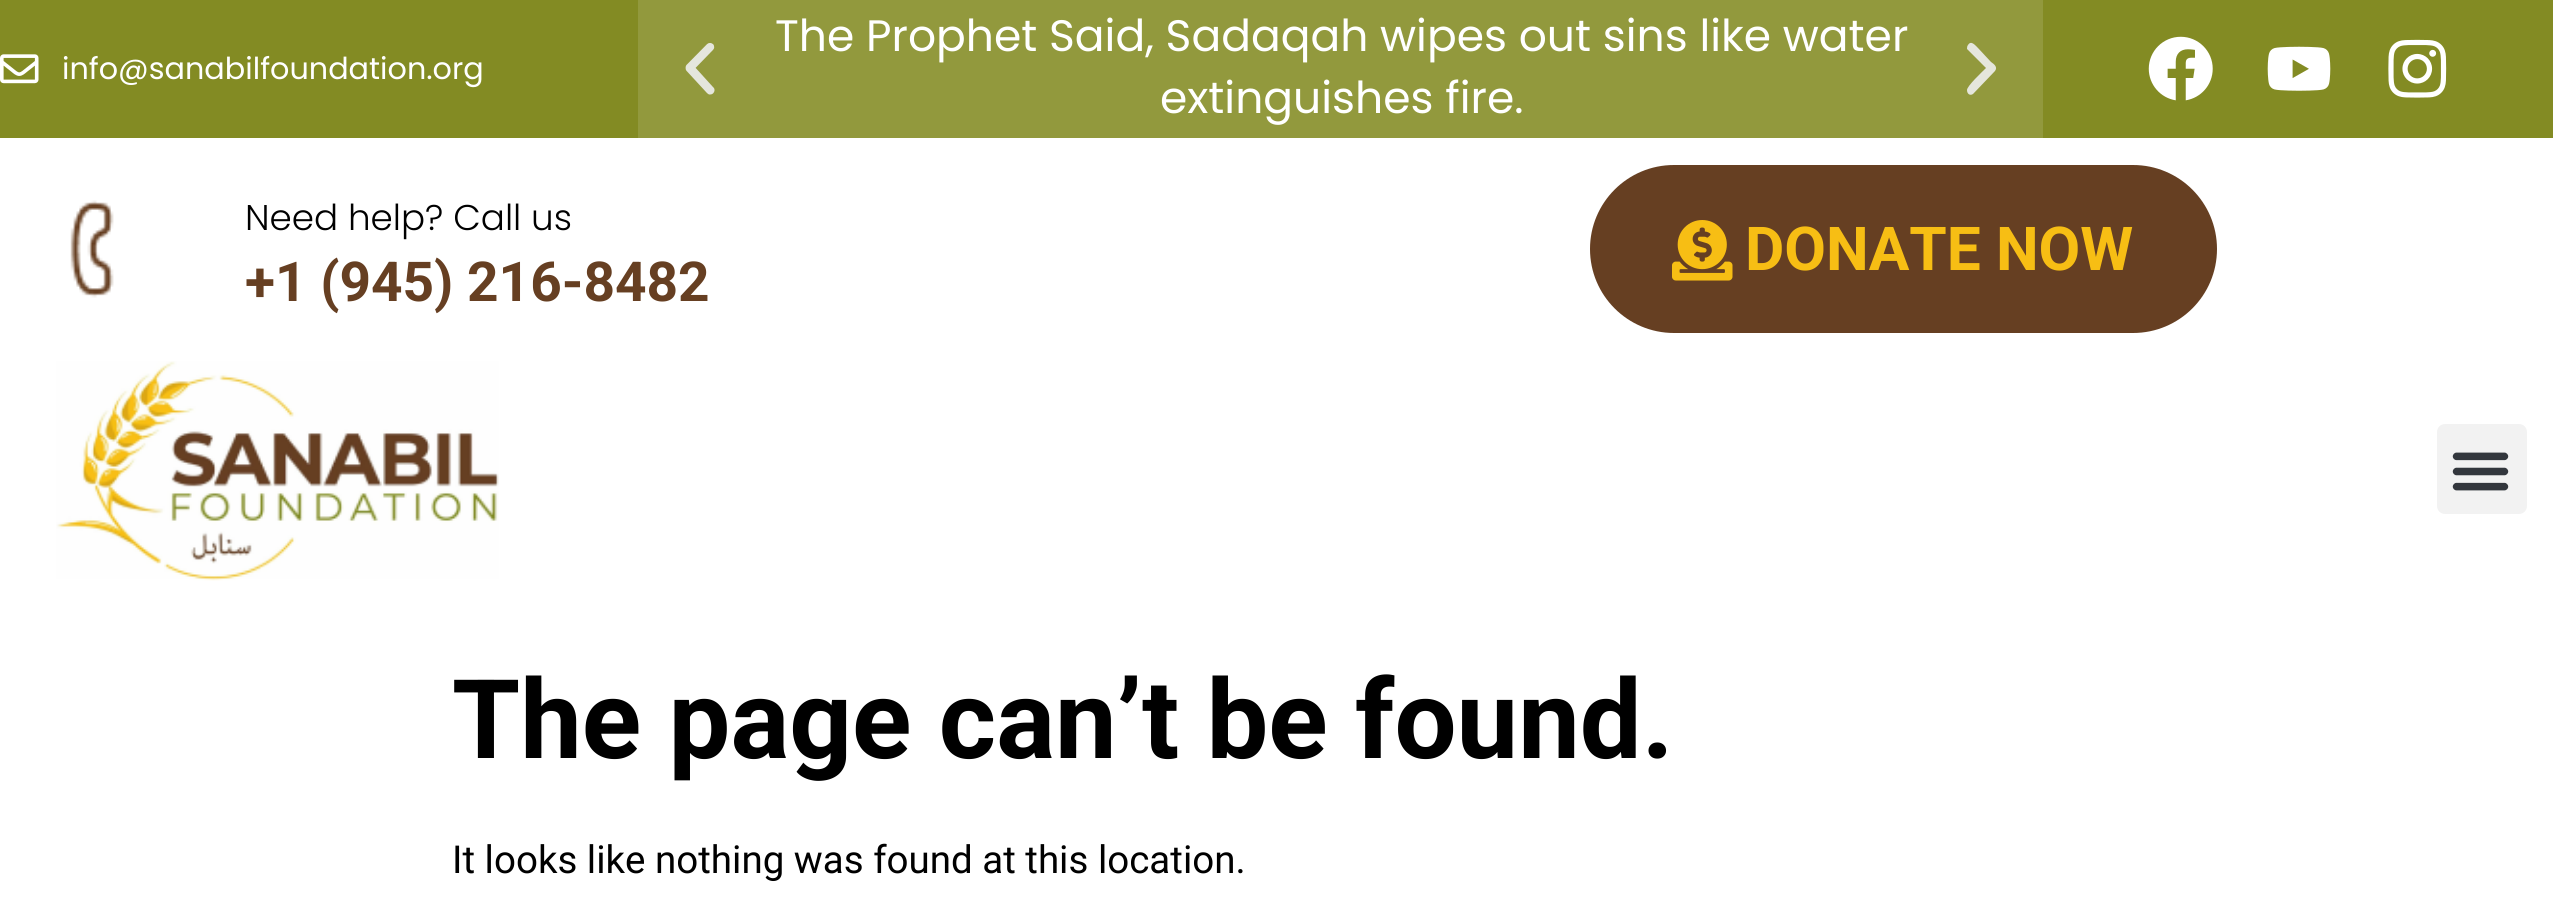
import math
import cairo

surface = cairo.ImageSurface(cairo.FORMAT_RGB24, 2553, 919)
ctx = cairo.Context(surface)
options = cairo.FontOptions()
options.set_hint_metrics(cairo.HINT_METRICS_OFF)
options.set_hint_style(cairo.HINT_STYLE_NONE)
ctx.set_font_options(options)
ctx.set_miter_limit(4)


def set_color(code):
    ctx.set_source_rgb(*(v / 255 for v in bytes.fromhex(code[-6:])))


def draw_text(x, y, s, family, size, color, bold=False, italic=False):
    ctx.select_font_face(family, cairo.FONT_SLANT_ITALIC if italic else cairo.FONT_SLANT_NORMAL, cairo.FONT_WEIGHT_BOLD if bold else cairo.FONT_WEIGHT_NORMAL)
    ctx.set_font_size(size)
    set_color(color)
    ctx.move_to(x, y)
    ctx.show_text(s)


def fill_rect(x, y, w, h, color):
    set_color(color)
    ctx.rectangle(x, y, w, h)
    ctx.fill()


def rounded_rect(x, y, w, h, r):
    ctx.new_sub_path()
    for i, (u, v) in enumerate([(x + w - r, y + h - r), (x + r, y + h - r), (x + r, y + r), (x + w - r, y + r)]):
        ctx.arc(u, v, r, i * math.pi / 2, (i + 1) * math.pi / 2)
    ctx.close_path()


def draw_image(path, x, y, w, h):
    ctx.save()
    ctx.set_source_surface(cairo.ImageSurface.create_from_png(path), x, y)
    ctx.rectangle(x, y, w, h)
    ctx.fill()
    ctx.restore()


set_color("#ffffff")
ctx.paint()
fill_rect(0, 0, 2553, 138, "#838b23")
draw_image("assets/img1.png", 0, 54, 39, 30)
draw_text(62, 79, "info@sanabilfoundation.org", "Poppins", 30.25, "#ffffff")
fill_rect(638, 0, 1405, 138, "#92993d")
draw_image("assets/img2.png", 685, 43, 30, 52)
draw_text(775, 51, "The Prophet Said, Sadaqah wipes out sins like water", "Poppins", 44, "#ffffff")
draw_text(1160, 113, "extinguishes fire.", "Poppins", 44, "#ffffff")
set_color("#e5e6dc")
ctx.new_path()
ctx.move_to(1995, 71)
ctx.curve_to(1998, 67, 1994, 64, 1991, 62)
ctx.line_to(1978, 48)
ctx.curve_to(1975, 45, 1971, 40, 1968, 45)
ctx.curve_to(1967, 46, 1967, 48, 1967, 49)
ctx.line_to(1986, 68)
ctx.curve_to(1982, 72, 1967, 86, 1967, 90)
ctx.curve_to(1967, 94, 1970, 96, 1973, 94)
ctx.close_path()
ctx.fill()
draw_image("assets/img3.png", 2148, 36, 65, 65)
draw_image("assets/img4.png", 2267, 46, 64, 45)
draw_image("assets/img5.png", 2388, 39, 59, 59)
draw_image("assets/img6.png", 70, 200, 44, 98)
draw_text(245, 230, "Need help? Call us", "Poppins Light", 35.75, "#000000")
draw_text(245, 301, "+1 (945) 216-8482", "Roboto", 55, "#663f22", bold=True)
rounded_rect(1590, 165, 627, 168, 84)
ctx.fill()
draw_image("assets/img7.png", 1672, 220, 61, 61)
draw_text(1745, 270, "DONATE NOW", "Roboto", 60.5, "#f7be14", bold=True)
draw_image("assets/img8.png", 56, 361, 443, 220)
set_color("#f2f2f2")
rounded_rect(2437, 424, 90, 90, 8)
ctx.fill()
draw_image("assets/img9.png", 2452, 452, 57, 39)
draw_text(452, 758, "The page can’t be found.", "Roboto", 110, "#000000", bold=True)
draw_text(452, 873, "It looks like nothing was found at this location.", "Roboto", 38.5, "#000000")
surface.write_to_png("output.png")
